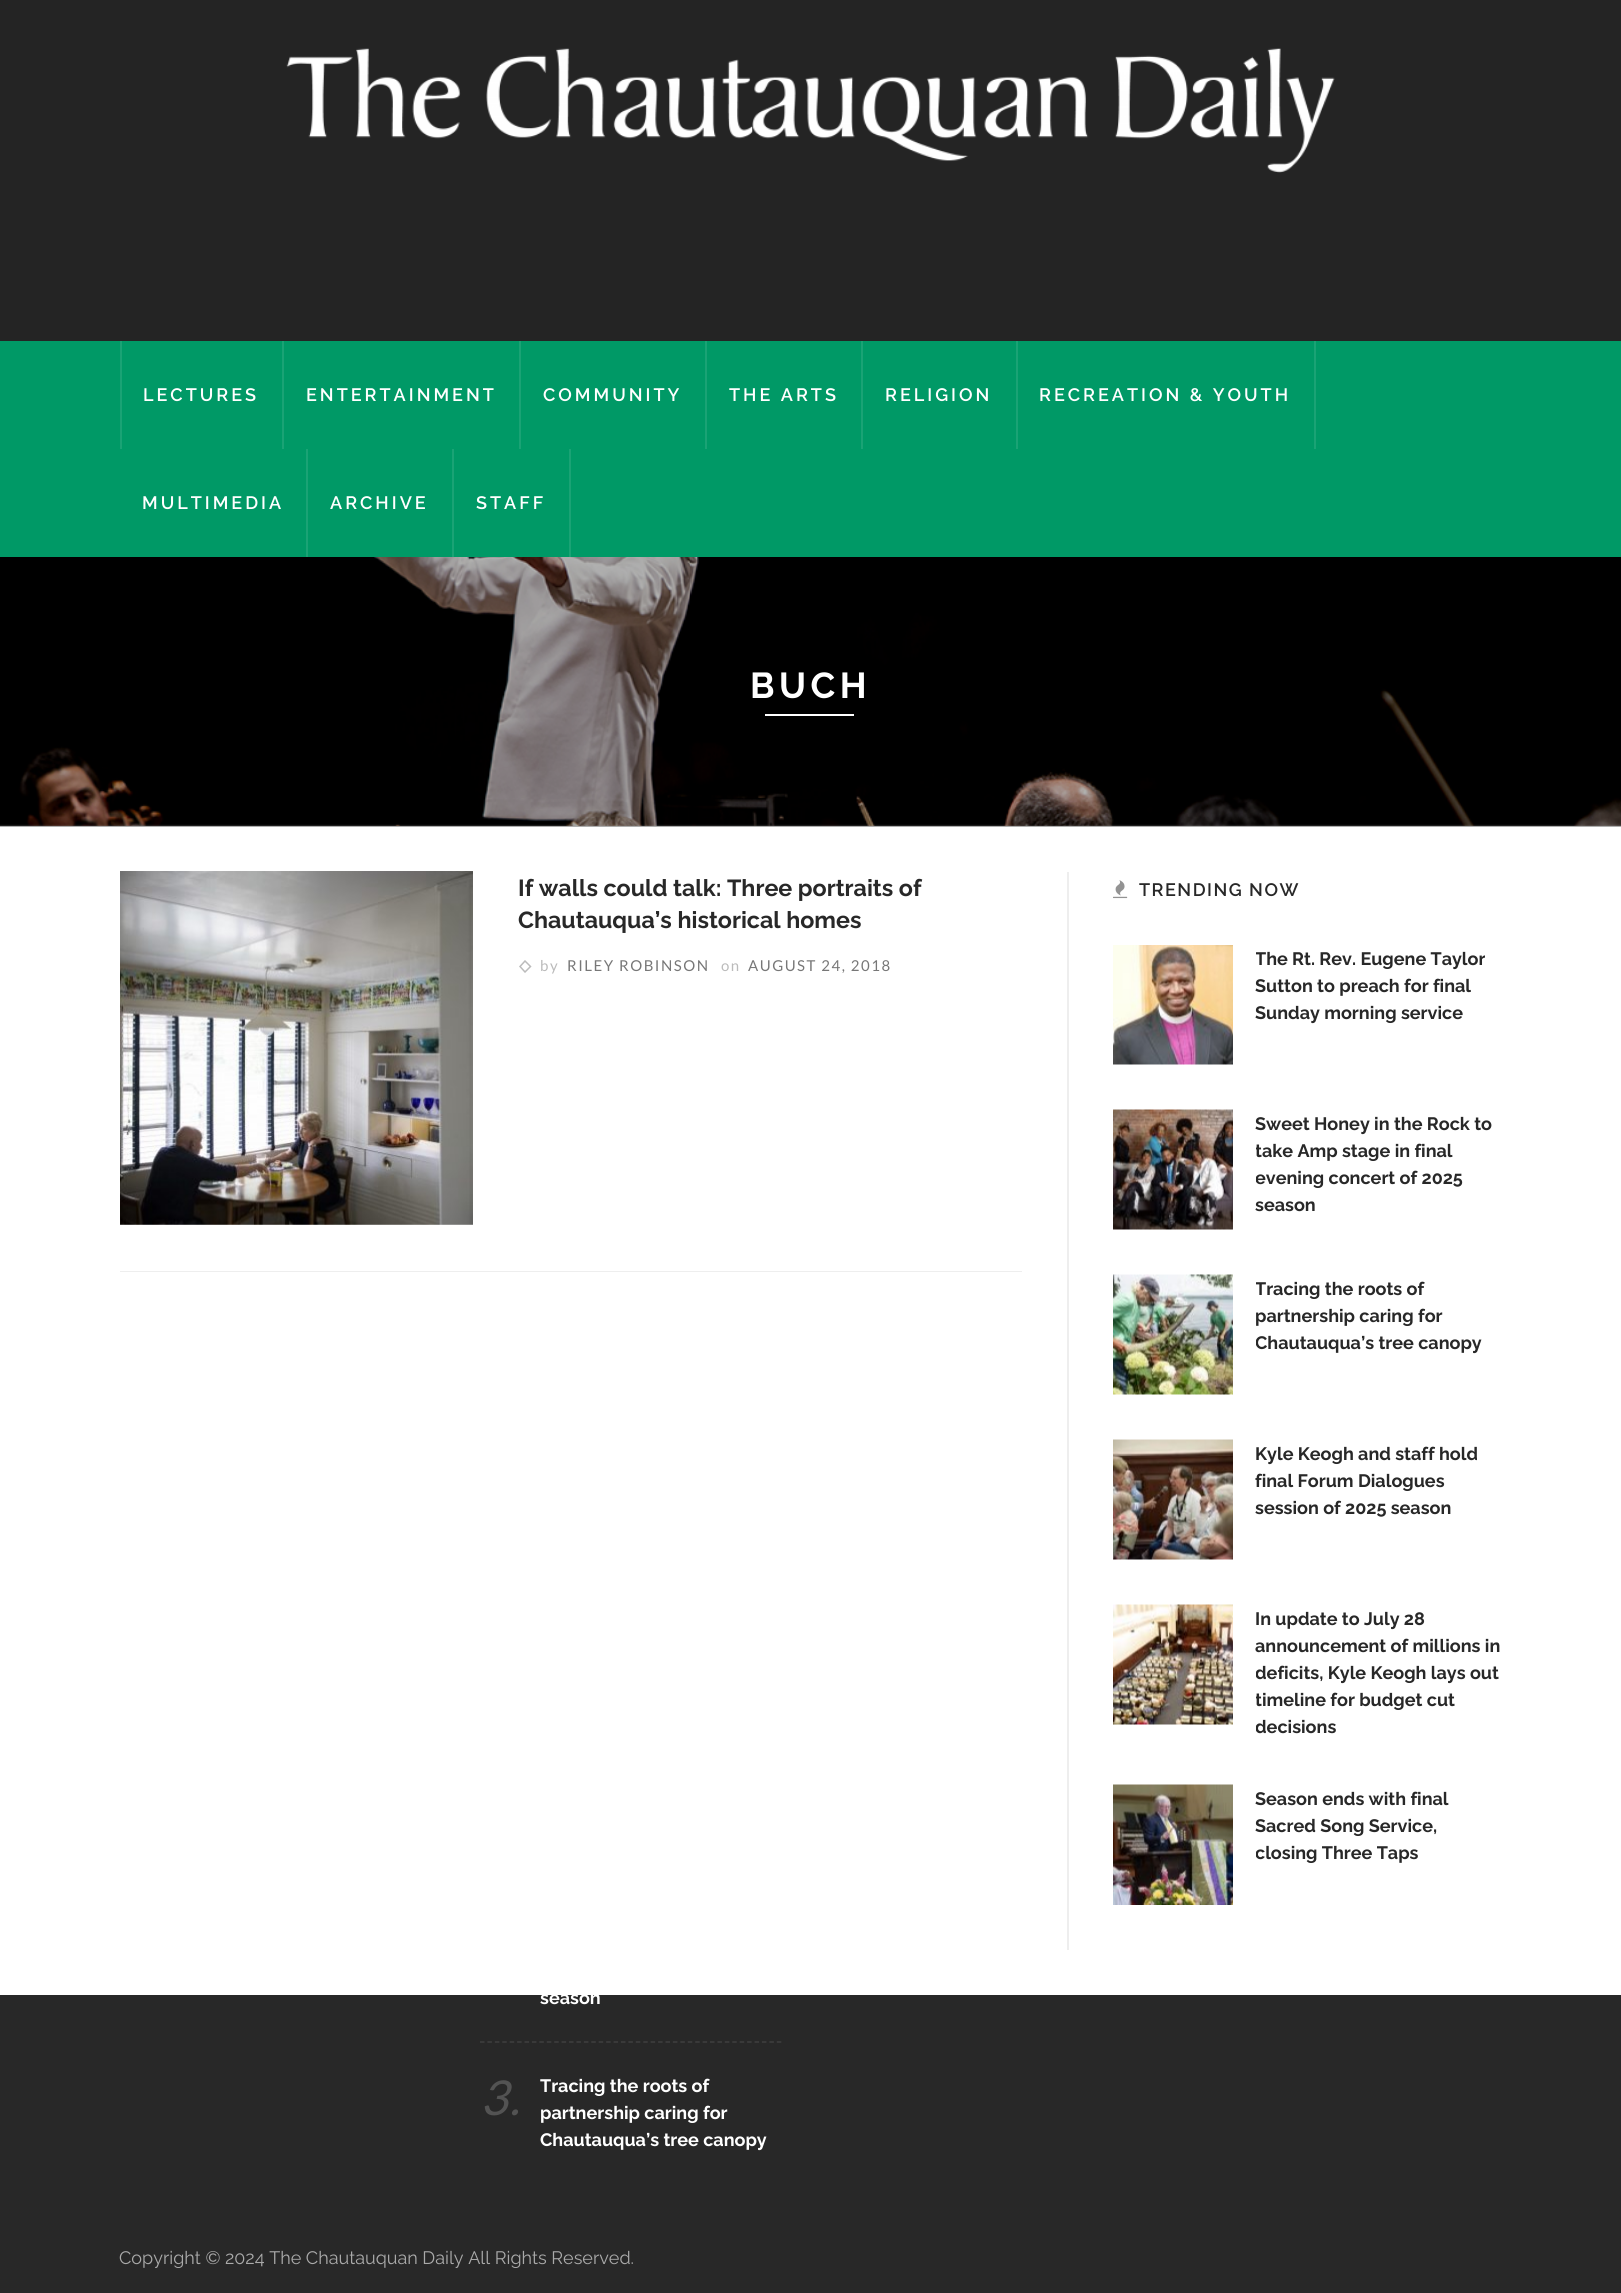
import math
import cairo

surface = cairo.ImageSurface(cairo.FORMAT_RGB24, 1621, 2293)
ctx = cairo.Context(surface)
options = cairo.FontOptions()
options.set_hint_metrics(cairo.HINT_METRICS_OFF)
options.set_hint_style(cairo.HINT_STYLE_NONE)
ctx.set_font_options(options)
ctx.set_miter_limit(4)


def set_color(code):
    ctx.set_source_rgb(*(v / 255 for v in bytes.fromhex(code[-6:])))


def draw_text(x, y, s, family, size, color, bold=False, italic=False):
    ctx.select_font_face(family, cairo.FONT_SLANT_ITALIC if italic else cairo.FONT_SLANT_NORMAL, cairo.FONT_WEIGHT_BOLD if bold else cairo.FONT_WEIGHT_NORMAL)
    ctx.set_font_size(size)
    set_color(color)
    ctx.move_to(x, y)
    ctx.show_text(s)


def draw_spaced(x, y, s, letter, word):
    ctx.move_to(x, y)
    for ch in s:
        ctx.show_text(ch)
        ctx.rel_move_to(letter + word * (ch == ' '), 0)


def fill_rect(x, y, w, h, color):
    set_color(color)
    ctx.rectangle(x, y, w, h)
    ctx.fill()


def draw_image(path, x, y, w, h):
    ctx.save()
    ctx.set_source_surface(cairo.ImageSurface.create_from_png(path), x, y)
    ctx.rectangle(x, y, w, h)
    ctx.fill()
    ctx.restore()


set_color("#282828")
ctx.paint()
fill_rect(0, 827, 1621, 1168, "#ffffff")
fill_rect(0, 0, 1621, 341, "#242424")
draw_image("assets/img1.png", 286, 48, 1049, 125)
fill_rect(0, 341, 1621, 216, "#009966")
fill_rect(282, 341, 2, 108, "#1aa375")
fill_rect(120, 341, 2, 108, "#1aa375")
ctx.select_font_face("Raleway SemiBold")
ctx.set_font_size(18)
set_color("#ffffff")
draw_spaced(143, 401, "LECTURES", 3, 0)
fill_rect(519, 341, 2, 108, "#1aa375")
set_color("#ffffff")
draw_spaced(306, 401, "ENTERTAINMENT", 3, 0)
fill_rect(705, 341, 2, 108, "#1aa375")
set_color("#ffffff")
draw_spaced(543, 401, "COMMUNITY", 3, 0)
fill_rect(861, 341, 2, 108, "#1aa375")
set_color("#ffffff")
draw_spaced(729, 401, "THE ARTS", 3, 0)
fill_rect(1016, 341, 2, 108, "#1aa375")
set_color("#ffffff")
draw_spaced(885, 401, "RELIGION", 3, 0)
fill_rect(1314, 341, 2, 108, "#1aa375")
set_color("#ffffff")
draw_spaced(1039, 401, "RECREATION & YOUTH", 3, 0)
fill_rect(306, 449, 2, 108, "#1aa375")
set_color("#ffffff")
draw_spaced(142, 509, "MULTIMEDIA", 3, 0)
fill_rect(452, 449, 2, 108, "#1aa375")
set_color("#ffffff")
draw_spaced(330, 509, "ARCHIVE", 3, 0)
fill_rect(569, 449, 2, 108, "#1aa375")
set_color("#ffffff")
draw_spaced(476, 509, "STAFF", 3, 0)
fill_rect(0, 824, 1621, 3, "#adadad")
draw_image("assets/img2.png", 0, 557, 1621, 269)
ctx.select_font_face("Raleway", cairo.FONT_SLANT_NORMAL, cairo.FONT_WEIGHT_BOLD)
ctx.set_font_size(36)
set_color("#ffffff")
draw_spaced(750, 698, "BUCH", 4.5, 0)
fill_rect(765, 714, 89, 2, "#ffffff")
fill_rect(120, 1271, 902, 1, "#eeeeee")
draw_image("assets/img3.png", 120, 871, 353, 354)
draw_text(518, 896, "If walls could talk: Three portraits of", "Raleway", 23.25, "#282828", bold=True)
draw_text(518, 928, "Chautauqua’s historical homes", "Raleway", 23.25, "#282828", bold=True)
ctx.new_path()
ctx.move_to(525, 961)
ctx.line_to(530.5, 966.5)
ctx.line_to(525, 972)
ctx.line_to(520, 966.5)
ctx.close_path()
set_color("#bbbbbb")
ctx.set_line_width(1.5)
ctx.stroke()
ctx.select_font_face("Lato")
ctx.set_font_size(15)
draw_spaced(540, 971, "by", 1.5, 0)
set_color("#777777")
draw_spaced(567, 971, "RILEY ROBINSON", 1.5, 0)
set_color("#bbbbbb")
draw_spaced(721, 971, "on", 1.5, 0)
set_color("#777777")
draw_spaced(748, 971, "AUGUST 24, 2018", 1.5, 0)
fill_rect(1067, 872, 2, 1078, "#eeeeee")
draw_image("assets/img4.png", 1113, 880, 15, 19)
ctx.select_font_face("Raleway SemiBold")
ctx.set_font_size(18)
set_color("#282828")
draw_spaced(1139, 896, "TRENDING NOW", 1.5, 0)
draw_image("assets/img5.png", 1113, 945, 120, 120)
ctx.save()
ctx.rectangle(1256, 945, 246, 81)
ctx.clip()
draw_text(1255, 965, "The Rt. Rev. Eugene Taylor", "Raleway", 18, "#282828", bold=True)
ctx.restore()
draw_text(1255, 992, "Sutton to preach for final", "Raleway", 18, "#282828", bold=True)
draw_text(1255, 1019, "Sunday morning service", "Raleway", 18, "#282828", bold=True)
draw_image("assets/img6.png", 1113, 1109, 120, 121)
draw_text(1255, 1130, "Sweet Honey in the Rock to", "Raleway", 18, "#282828", bold=True)
ctx.save()
ctx.rectangle(1256, 1110, 246, 108)
ctx.clip()
draw_text(1255, 1157, "take Amp stage in final", "Raleway", 18, "#282828", bold=True)
draw_text(1255, 1184, "evening concert of 2025", "Raleway", 18, "#282828", bold=True)
ctx.restore()
draw_text(1255, 1211, "season", "Raleway", 18, "#282828", bold=True)
draw_image("assets/img7.png", 1113, 1274, 120, 121)
ctx.save()
ctx.rectangle(1256, 1275, 246, 81)
ctx.clip()
draw_text(1255, 1295, "Tracing the roots of", "Raleway", 18, "#282828", bold=True)
ctx.restore()
draw_text(1255, 1322, "partnership caring for", "Raleway", 18, "#282828", bold=True)
ctx.save()
ctx.rectangle(1256, 1275, 246, 81)
ctx.clip()
draw_text(1255, 1349, "Chautauqua’s tree canopy", "Raleway", 18, "#282828", bold=True)
ctx.restore()
draw_image("assets/img8.png", 1113, 1439, 120, 121)
draw_text(1255, 1460, "Kyle Keogh and staff hold", "Raleway", 18, "#282828", bold=True)
draw_text(1255, 1487, "final Forum Dialogues", "Raleway", 18, "#282828", bold=True)
draw_text(1255, 1514, "session of 2025 season", "Raleway", 18, "#282828", bold=True)
draw_image("assets/img9.png", 1113, 1604, 120, 121)
draw_text(1255, 1625, "In update to July 28", "Raleway", 18, "#282828", bold=True)
draw_text(1255, 1652, "announcement of millions in", "Raleway", 18, "#282828", bold=True)
ctx.save()
ctx.rectangle(1256, 1605, 246, 135)
ctx.clip()
draw_text(1255, 1679, "deficits, Kyle Keogh lays out", "Raleway", 18, "#282828", bold=True)
draw_text(1255, 1706, "timeline for budget cut", "Raleway", 18, "#282828", bold=True)
draw_text(1255, 1733, "decisions", "Raleway", 18, "#282828", bold=True)
ctx.restore()
draw_image("assets/img10.png", 1113, 1784, 120, 121)
draw_text(1255, 1805, "Season ends with final", "Raleway", 18, "#282828", bold=True)
draw_text(1255, 1832, "Sacred Song Service,", "Raleway", 18, "#282828", bold=True)
ctx.save()
ctx.rectangle(1256, 1785, 246, 83)
ctx.clip()
draw_text(1255, 1859, "closing Three Taps", "Raleway", 18, "#282828", bold=True)
ctx.restore()
ctx.new_path()
ctx.move_to(480, 2042)
ctx.line_to(781.5, 2042)
set_color("#3e3e3e")
ctx.set_dash([4.5, 2.92])
ctx.stroke()
draw_text(540, 2004, "season", "Raleway", 18, "#ffffff", bold=True)
ctx.select_font_face("Lato", cairo.FONT_SLANT_ITALIC)
ctx.set_font_size(48)
set_color("#535353")
draw_spaced(480, 2115, "3.", 1.5, 0)
draw_text(540, 2092, "Tracing the roots of", "Raleway", 18, "#ffffff", bold=True)
draw_text(540, 2119, "partnership caring for", "Raleway", 18, "#ffffff", bold=True)
draw_text(540, 2146, "Chautauqua’s tree canopy", "Raleway", 18, "#ffffff", bold=True)
draw_text(119, 2264, "Copyright © 2024 The Chautauquan Daily All Rights Reserved.", "Raleway", 18, "#aaaaaa")
surface.write_to_png("output.png")
